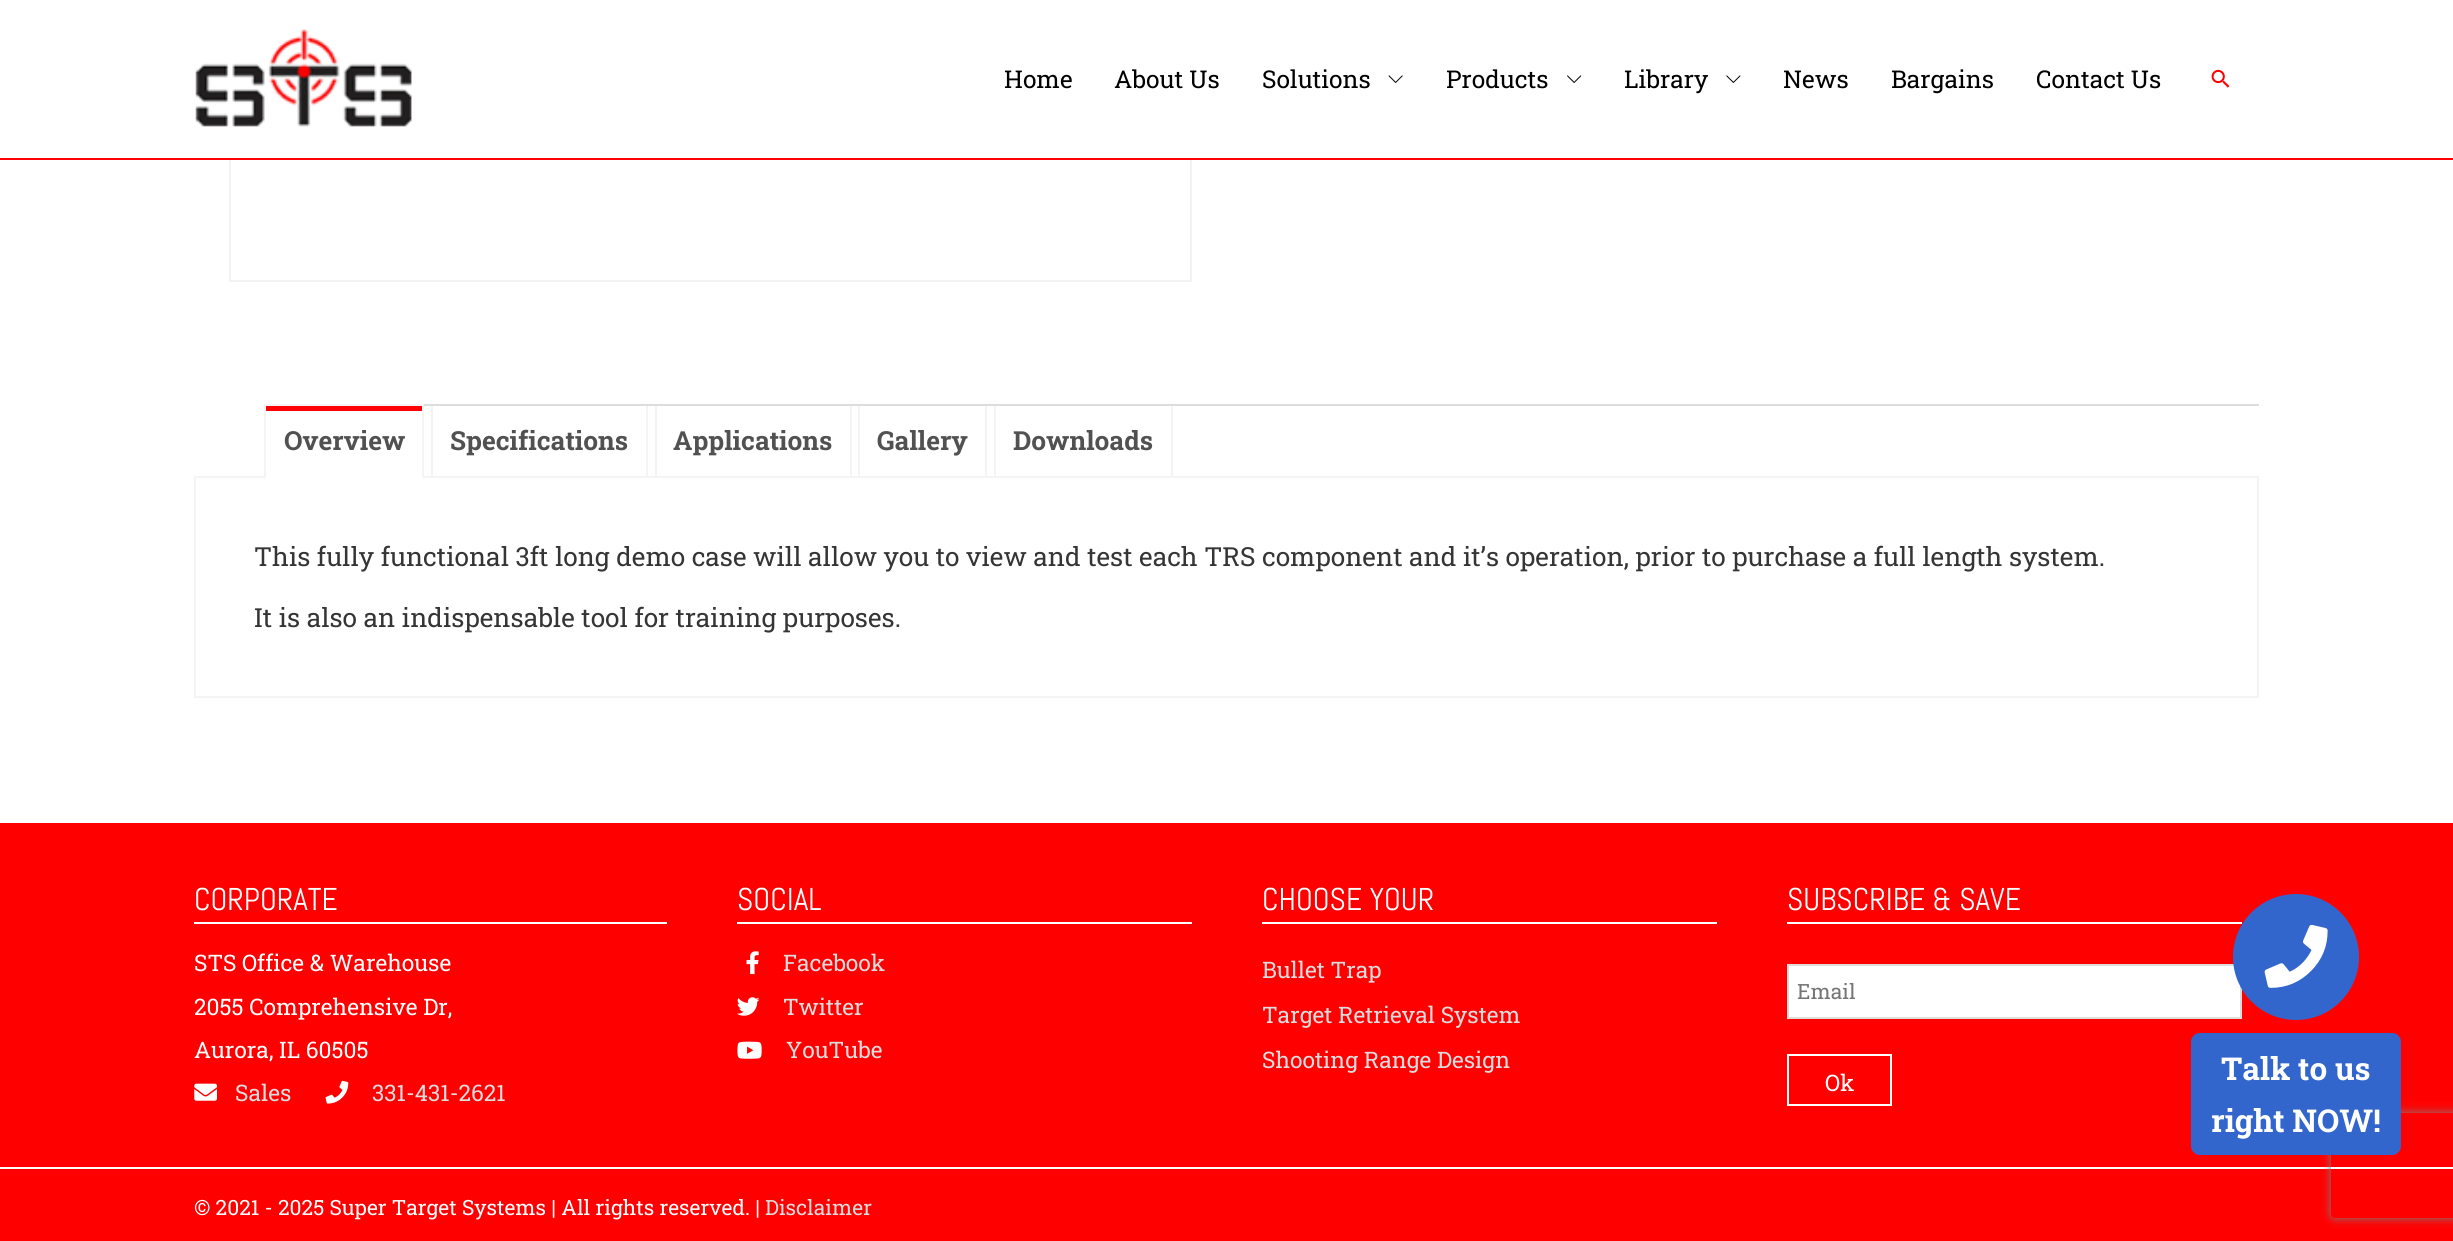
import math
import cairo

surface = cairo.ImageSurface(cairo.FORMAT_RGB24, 2453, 1241)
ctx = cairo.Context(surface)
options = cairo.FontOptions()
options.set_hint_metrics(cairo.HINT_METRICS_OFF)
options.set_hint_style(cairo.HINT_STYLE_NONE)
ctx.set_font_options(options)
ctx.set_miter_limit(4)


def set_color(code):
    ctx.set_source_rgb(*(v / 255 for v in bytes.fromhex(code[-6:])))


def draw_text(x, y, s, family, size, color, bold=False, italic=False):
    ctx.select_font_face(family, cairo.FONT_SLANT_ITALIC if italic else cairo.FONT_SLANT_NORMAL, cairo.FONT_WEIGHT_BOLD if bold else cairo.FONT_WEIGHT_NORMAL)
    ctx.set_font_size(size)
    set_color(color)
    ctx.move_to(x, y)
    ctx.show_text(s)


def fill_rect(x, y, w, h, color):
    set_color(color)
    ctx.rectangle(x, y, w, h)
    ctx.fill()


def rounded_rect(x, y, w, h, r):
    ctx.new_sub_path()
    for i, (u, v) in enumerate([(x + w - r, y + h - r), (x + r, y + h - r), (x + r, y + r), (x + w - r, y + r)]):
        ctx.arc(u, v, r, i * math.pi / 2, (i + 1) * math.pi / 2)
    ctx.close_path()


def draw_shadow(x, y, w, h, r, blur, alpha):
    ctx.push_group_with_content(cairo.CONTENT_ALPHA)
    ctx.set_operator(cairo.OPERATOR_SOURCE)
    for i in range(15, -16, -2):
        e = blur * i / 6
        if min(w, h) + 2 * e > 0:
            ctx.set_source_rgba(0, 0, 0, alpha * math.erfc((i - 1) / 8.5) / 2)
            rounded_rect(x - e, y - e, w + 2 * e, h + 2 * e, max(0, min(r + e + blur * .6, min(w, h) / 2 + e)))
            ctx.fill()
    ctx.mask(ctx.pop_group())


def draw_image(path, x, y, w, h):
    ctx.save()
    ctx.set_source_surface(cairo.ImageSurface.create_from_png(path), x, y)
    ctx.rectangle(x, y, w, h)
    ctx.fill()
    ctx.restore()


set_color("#ffffff")
ctx.paint()
ctx.rectangle(230, -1, 961, 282)
set_color("#f2f2f2")
ctx.stroke()
fill_rect(229, 0, 963, 158, "#ffffff")
fill_rect(0, 158, 2453, 2, "#ff0000")
draw_image("assets/img1.png", 195, 29, 217, 98)
draw_text(1004, 88, "Home", "Roboto Slab", 24.5, "#000000")
draw_text(1114, 88, "About Us", "Roboto Slab", 24.5, "#000000")
draw_text(1262, 88, "Solutions", "Roboto Slab", 24.5, "#000000")
draw_image("assets/img2.png", 1388, 75, 15, 8)
draw_text(1446, 88, "Products", "Roboto Slab", 24.5, "#000000")
draw_image("assets/img3.png", 1567, 75, 15, 8)
draw_text(1624, 88, "Library", "Roboto Slab", 24.5, "#000000")
draw_image("assets/img4.png", 1726, 75, 15, 8)
draw_text(1783, 88, "News", "Roboto Slab", 24.5, "#000000")
draw_text(1891, 88, "Bargains", "Roboto Slab", 24.5, "#000000")
draw_text(2036, 88, "Contact Us", "Roboto Slab", 24.5, "#000000")
draw_image("assets/img5.png", 2211, 69, 19, 19)
ctx.rectangle(195, 477, 2063, 220)
set_color("#f4f4f4")
ctx.stroke()
ctx.rectangle(432, 405, 215, 72)
ctx.stroke()
ctx.rectangle(656, 405, 195, 72)
ctx.stroke()
ctx.rectangle(859, 405, 127, 72)
ctx.stroke()
ctx.rectangle(995, 405, 177, 72)
ctx.stroke()
fill_rect(424, 404, 1835, 2, "#dddddd")
fill_rect(264, 404, 160, 2, "#f4f4f4")
ctx.new_path()
ctx.move_to(424, 404)
ctx.line_to(424, 480)
ctx.line_to(422, 476)
ctx.line_to(422, 406)
ctx.close_path()
ctx.fill()
ctx.save()
ctx.rectangle(264, 404, 1995, 74)
ctx.clip()
set_color("#ffffff")
ctx.new_path()
ctx.move_to(424, 480)
ctx.line_to(264, 480)
ctx.line_to(266, 476)
ctx.line_to(422, 476)
ctx.close_path()
ctx.fill()
ctx.restore()
ctx.new_path()
ctx.move_to(264, 480)
ctx.line_to(264, 404)
ctx.line_to(266, 406)
ctx.line_to(266, 476)
ctx.close_path()
ctx.fill()
fill_rect(266, 406, 156, 5, "#ff0000")
draw_text(284, 450, "Overview", "Roboto Slab", 26.25, "#515151", bold=True)
draw_text(450, 450, "Specifications", "Roboto Slab", 26.25, "#515151", bold=True)
draw_text(673, 450, "Applications", "Roboto Slab", 26.25, "#515151", bold=True)
draw_text(877, 450, "Gallery", "Roboto Slab", 26.25, "#515151", bold=True)
draw_text(1013, 450, "Downloads", "Roboto Slab", 26.25, "#515151", bold=True)
draw_text(254, 566, "This fully functional 3ft long demo case will allow you to view and test each TRS component and it’s operation, prior to purchase a full length system.", "Roboto Slab", 26.25, "#353535")
draw_text(254, 627, "It is also an indispensable tool for training purposes.", "Roboto Slab", 26.25, "#353535")
fill_rect(0, 823, 2453, 344, "#ff0000")
fill_rect(194, 922, 473, 2, "#ffffff")
draw_text(194, 910, "CORPORATE", "Abel", 31.5, "#ffffff")
draw_text(194, 971, "STS Office & Warehouse", "Roboto Slab", 22.75, "#ffffff")
draw_text(194, 1015, "2055 Comprehensive Dr,", "Roboto Slab", 22.75, "#ffffff")
draw_text(194, 1058, "Aurora, IL 60505", "Roboto Slab", 22.75, "#ffffff")
draw_image("assets/img6.png", 194, 1083, 23, 18)
draw_text(235, 1101, "Sales", "Roboto Slab", 22.75, "#dddddd")
draw_image("assets/img7.png", 325, 1080, 24, 24)
draw_text(372, 1101, "331-431-2621", "Roboto Slab", 22.75, "#dddddd")
fill_rect(737, 922, 455, 2, "#ffffff")
draw_text(737, 910, "SOCIAL", "Abel", 31.5, "#ffffff")
draw_image("assets/img8.png", 746, 951, 13, 24)
draw_text(783, 971, "Facebook", "Roboto Slab", 22.75, "#dddddd")
draw_image("assets/img9.png", 736, 997, 24, 19)
draw_text(783, 1015, "Twitter", "Roboto Slab", 22.75, "#dddddd")
draw_image("assets/img10.png", 737, 1041, 25, 18)
draw_text(786, 1058, "YouTube", "Roboto Slab", 22.75, "#dddddd")
fill_rect(1262, 922, 455, 2, "#ffffff")
draw_text(1262, 910, "CHOOSE YOUR", "Abel", 31.5, "#ffffff")
draw_text(1262, 978, "Bullet Trap", "Roboto Slab", 22.75, "#dddddd")
draw_text(1262, 1023, "Target Retrieval System", "Roboto Slab", 22.75, "#dddddd")
draw_text(1262, 1068, "Shooting Range Design", "Roboto Slab", 22.75, "#dddddd")
fill_rect(1787, 922, 455, 2, "#ffffff")
draw_text(1787, 910, "SUBSCRIBE & SAVE", "Abel", 31.5, "#ffffff")
ctx.rectangle(1788, 965, 453, 53)
ctx.fill_preserve()
set_color("#dddddd")
ctx.stroke()
draw_text(1797, 999, "Email", "Roboto Slab", 21, "#757575")
ctx.rectangle(1788, 1055, 103, 50)
set_color("#ffffff")
ctx.stroke()
draw_text(1825, 1091, "Ok", "Roboto Slab", 22.75, "#ffffff")
fill_rect(0, 1169, 2453, 72, "#ff0000")
draw_text(194, 1215, "© 2021 - 2025 Super Target Systems | All rights reserved. |", "Roboto Slab", 21, "#ffffff")
draw_text(765, 1215, "Disclaimer", "Roboto Slab", 21, "#dddddd")
set_color("#3366cc")
ctx.new_path()
ctx.arc(2296, 957, 63, 0, 2 * math.pi)
ctx.fill()
draw_image("assets/img11.png", 2264, 924, 64, 64)
ctx.save()
ctx.set_fill_rule(cairo.FILL_RULE_EVEN_ODD)
ctx.new_path()
ctx.move_to(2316, 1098)
ctx.line_to(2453, 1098)
ctx.line_to(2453, 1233)
ctx.line_to(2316, 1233)
ctx.close_path()
ctx.move_to(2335, 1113)
ctx.line_to(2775, 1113)
ctx.curve_to(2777, 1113, 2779, 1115, 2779, 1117)
ctx.line_to(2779, 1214)
ctx.curve_to(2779, 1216, 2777, 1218, 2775, 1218)
ctx.line_to(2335, 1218)
ctx.curve_to(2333, 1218, 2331, 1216, 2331, 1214)
ctx.line_to(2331, 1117)
ctx.curve_to(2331, 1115, 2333, 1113, 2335, 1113)
ctx.close_path()
ctx.clip()
set_color("#808080")
draw_shadow(2331, 1113, 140, 105, 4, 4.5, 1)
ctx.restore()
rounded_rect(2191, 1033, 210, 122, 9)
ctx.fill()
draw_text(2221, 1080, "Talk to us", "Roboto Slab", 31.5, "#ffffff", bold=True)
draw_text(2211, 1132, "right NOW!", "Roboto Slab", 31.5, "#ffffff", bold=True)
surface.write_to_png("output.png")
